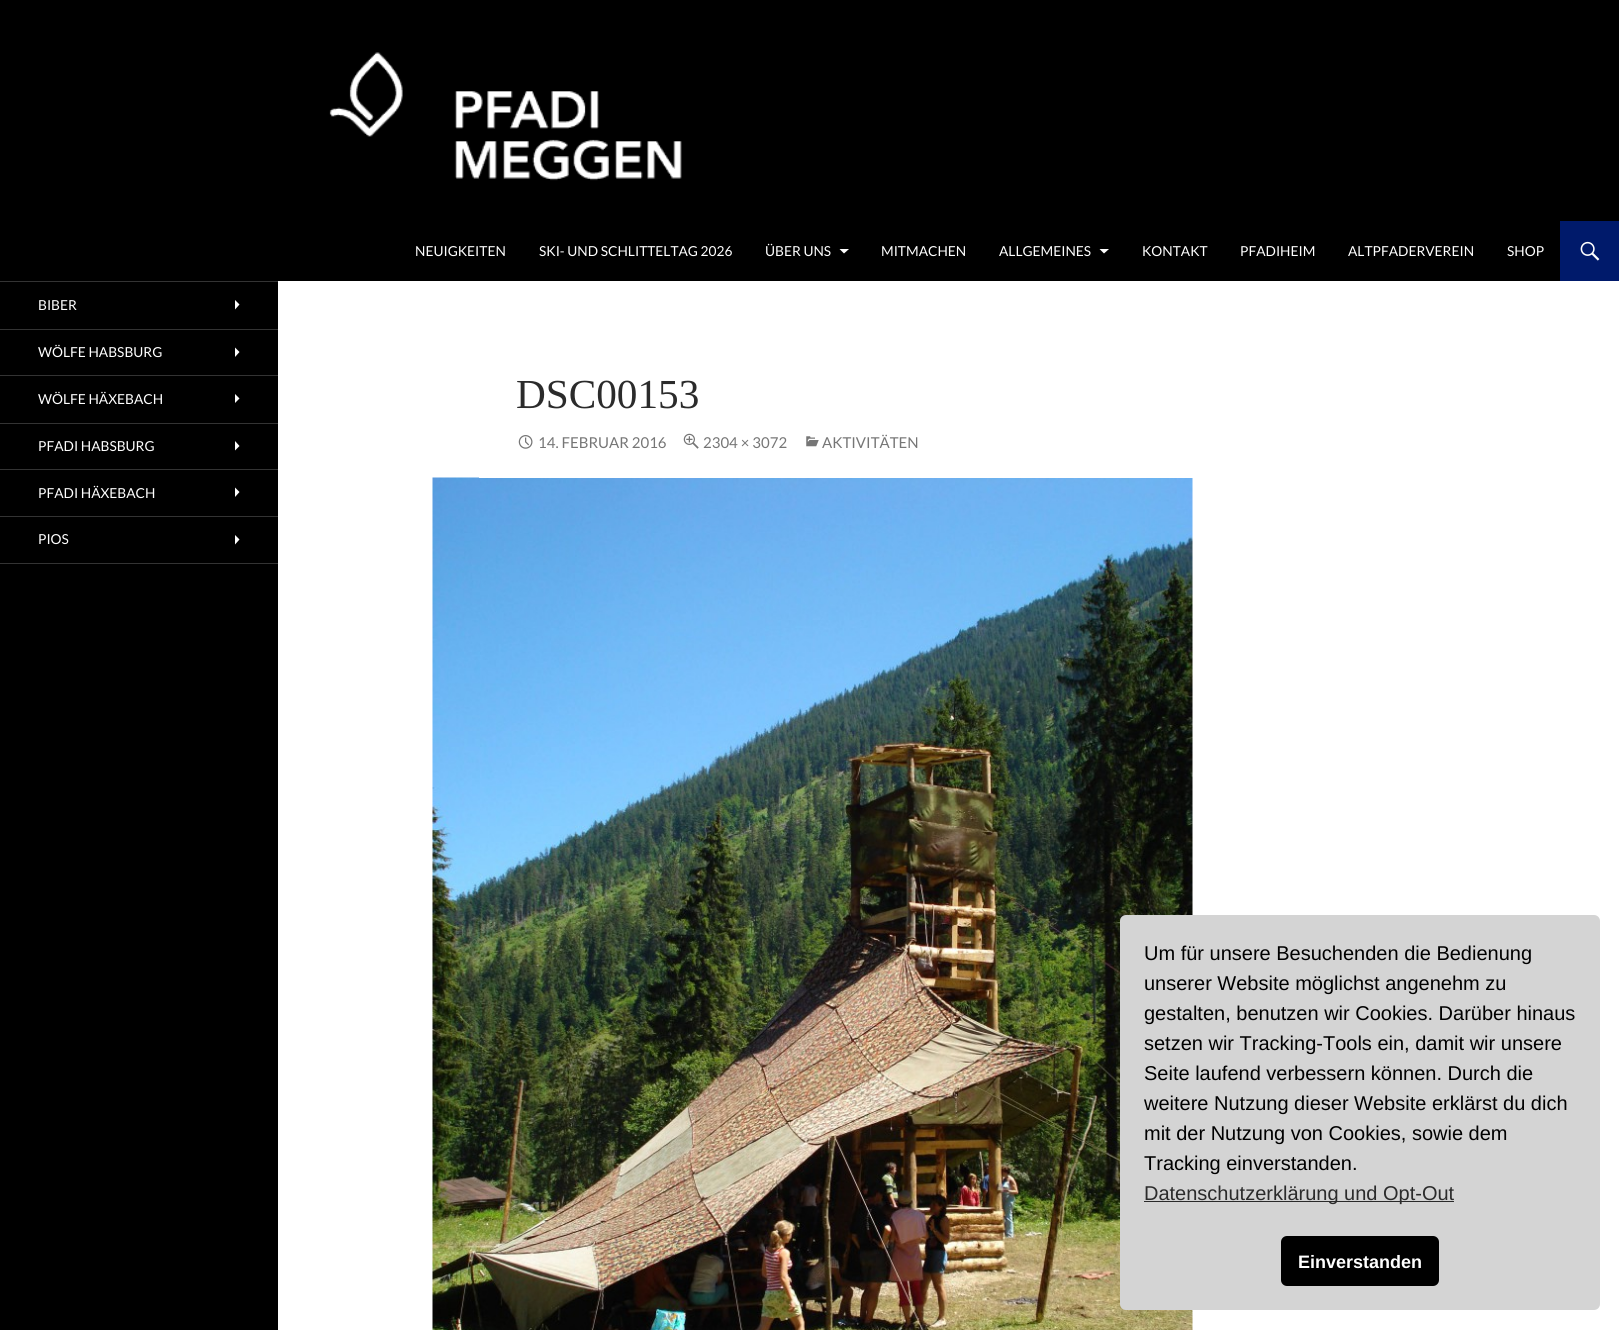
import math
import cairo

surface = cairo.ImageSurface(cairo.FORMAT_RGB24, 1619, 1330)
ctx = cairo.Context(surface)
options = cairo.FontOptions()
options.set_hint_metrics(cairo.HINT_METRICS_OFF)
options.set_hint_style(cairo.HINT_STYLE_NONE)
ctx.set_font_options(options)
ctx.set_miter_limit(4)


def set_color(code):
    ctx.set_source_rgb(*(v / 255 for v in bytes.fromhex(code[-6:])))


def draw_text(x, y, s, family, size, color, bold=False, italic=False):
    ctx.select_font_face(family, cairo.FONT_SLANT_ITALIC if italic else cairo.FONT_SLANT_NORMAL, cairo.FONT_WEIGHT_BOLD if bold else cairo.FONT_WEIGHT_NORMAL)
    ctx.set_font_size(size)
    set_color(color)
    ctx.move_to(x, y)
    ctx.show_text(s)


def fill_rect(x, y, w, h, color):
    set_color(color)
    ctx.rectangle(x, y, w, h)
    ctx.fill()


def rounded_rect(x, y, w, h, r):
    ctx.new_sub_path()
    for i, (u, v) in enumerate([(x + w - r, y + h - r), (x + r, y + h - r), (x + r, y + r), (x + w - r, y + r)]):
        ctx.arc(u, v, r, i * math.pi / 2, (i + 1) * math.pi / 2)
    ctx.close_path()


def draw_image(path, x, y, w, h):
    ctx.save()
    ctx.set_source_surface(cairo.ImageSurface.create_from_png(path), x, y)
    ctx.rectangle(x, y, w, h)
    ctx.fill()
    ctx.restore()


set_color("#ffffff")
ctx.paint()
fill_rect(0, 0, 1619, 221, "#000000")
draw_image("assets/img1.png", 278, 52, 1297, 169)
fill_rect(0, 221, 1560, 60, "#000000")
draw_text(415, 256, "NEUIGKEITEN", "Lato", 13.75, "#ffffff")
draw_text(539, 256, "SKI- UND SCHLITTELTAG 2026", "Lato", 13.75, "#ffffff")
draw_text(765, 256, "ÜBER UNS", "Lato", 13.75, "#ffffff")
ctx.new_path()
ctx.move_to(839.5, 249)
ctx.line_to(844, 253.5)
ctx.line_to(849, 249)
ctx.close_path()
ctx.fill()
draw_text(881, 256, "MITMACHEN", "Lato", 13.75, "#ffffff")
draw_text(999, 256, "ALLGEMEINES", "Lato", 13.75, "#ffffff")
ctx.new_path()
ctx.move_to(1099.5, 249)
ctx.line_to(1104, 253.5)
ctx.line_to(1109, 249)
ctx.close_path()
ctx.fill()
draw_text(1142, 256, "KONTAKT", "Lato", 13.75, "#ffffff")
draw_text(1240, 256, "PFADIHEIM", "Lato", 13.75, "#ffffff")
draw_text(1348, 256, "ALTPFADERVEREIN", "Lato", 13.75, "#ffffff")
draw_text(1507, 256, "SHOP", "Lato", 13.75, "#ffffff")
fill_rect(1560, 221, 59, 60, "#001a6b")
draw_image("assets/img2.png", 1580, 241, 20, 20)
fill_rect(0, 282, 278, 1048, "#000000")
fill_rect(0, 563, 278, 1, "#333333")
fill_rect(0, 281, 278, 1, "#333333")
draw_text(38, 310, "BIBER", "Lato", 13.75, "#ffffff")
ctx.new_path()
ctx.move_to(235, 309.5)
ctx.line_to(239.5, 304.5)
ctx.line_to(235, 300)
ctx.close_path()
ctx.fill()
fill_rect(0, 329, 278, 1, "#333333")
draw_text(38, 357, "WÖLFE HABSBURG", "Lato", 13.75, "#ffffff")
ctx.new_path()
ctx.move_to(235, 357)
ctx.line_to(239.5, 352)
ctx.line_to(235, 347.5)
ctx.close_path()
ctx.fill()
fill_rect(0, 375, 278, 1, "#333333")
draw_text(38, 404, "WÖLFE HÄXEBACH", "Lato", 13.75, "#ffffff")
ctx.new_path()
ctx.move_to(235, 403)
ctx.line_to(239.5, 398.5)
ctx.line_to(235, 394)
ctx.close_path()
ctx.fill()
fill_rect(0, 423, 278, 1, "#333333")
draw_text(38, 451, "PFADI HABSBURG", "Lato", 13.75, "#ffffff")
ctx.new_path()
ctx.move_to(235, 450.5)
ctx.line_to(239.5, 446)
ctx.line_to(235, 441)
ctx.close_path()
ctx.fill()
fill_rect(0, 469, 278, 1, "#333333")
draw_text(38, 498, "PFADI HÄXEBACH", "Lato", 13.75, "#ffffff")
ctx.new_path()
ctx.move_to(235, 497)
ctx.line_to(239.5, 492)
ctx.line_to(235, 487.5)
ctx.close_path()
ctx.fill()
fill_rect(0, 516, 278, 1, "#333333")
draw_text(38, 544, "PIOS", "Lato", 13.75, "#ffffff")
ctx.new_path()
ctx.move_to(235, 544.5)
ctx.line_to(239.5, 539.5)
ctx.line_to(235, 535)
ctx.close_path()
ctx.fill()
draw_image("assets/img6.png", 432, 477, 761, 853)
fill_rect(479, 477, 714, 1, "#ffffff")
draw_text(516, 408, "DSC00153", "Liberation Serif", 41.25, "#2b2b2b")
draw_image("assets/img3.png", 518, 435, 15, 14)
draw_text(538, 448, "14. FEBRUAR 2016", "Lato", 15, "#767676")
draw_image("assets/img4.png", 683, 433, 16, 16)
draw_text(703, 448, "2304 × 3072", "Lato", 15, "#767676")
draw_image("assets/img5.png", 806, 436, 13, 11)
draw_text(822, 448, "AKTIVITÄTEN", "Lato", 15, "#767676")
set_color("#d4d4d4")
rounded_rect(1120, 915, 480, 395, 6)
ctx.fill()
draw_text(1144, 960, "Um für unsere Besuchenden die Bedienung", "Liberation Sans", 20, "#000000")
draw_text(1144, 990, "unserer Website möglichst angenehm zu", "Liberation Sans", 20, "#000000")
draw_text(1144, 1020, "gestalten, benutzen wir Cookies. Darüber hinaus", "Liberation Sans", 20, "#000000")
draw_text(1144, 1050, "setzen wir Tracking-Tools ein, damit wir unsere", "Liberation Sans", 20, "#000000")
draw_text(1144, 1080, "Seite laufend verbessern können. Durch die", "Liberation Sans", 20, "#000000")
draw_text(1144, 1110, "weitere Nutzung dieser Website erklärst du dich", "Liberation Sans", 20, "#000000")
draw_text(1144, 1140, "mit der Nutzung von Cookies, sowie dem", "Liberation Sans", 20, "#000000")
draw_text(1144, 1170, "Tracking einverstanden.", "Liberation Sans", 20, "#000000")
fill_rect(1144, 1201, 310, 1, "#2a2a2a")
draw_text(1144, 1200, "Datenschutzerklärung und Opt-Out", "Liberation Sans", 20, "#2b2b2b")
set_color("#000000")
rounded_rect(1281, 1236, 158, 50, 6)
ctx.fill()
draw_text(1298, 1268, "Einverstanden", "Liberation Sans", 18, "#ffffff", bold=True)
surface.write_to_png("output.png")
